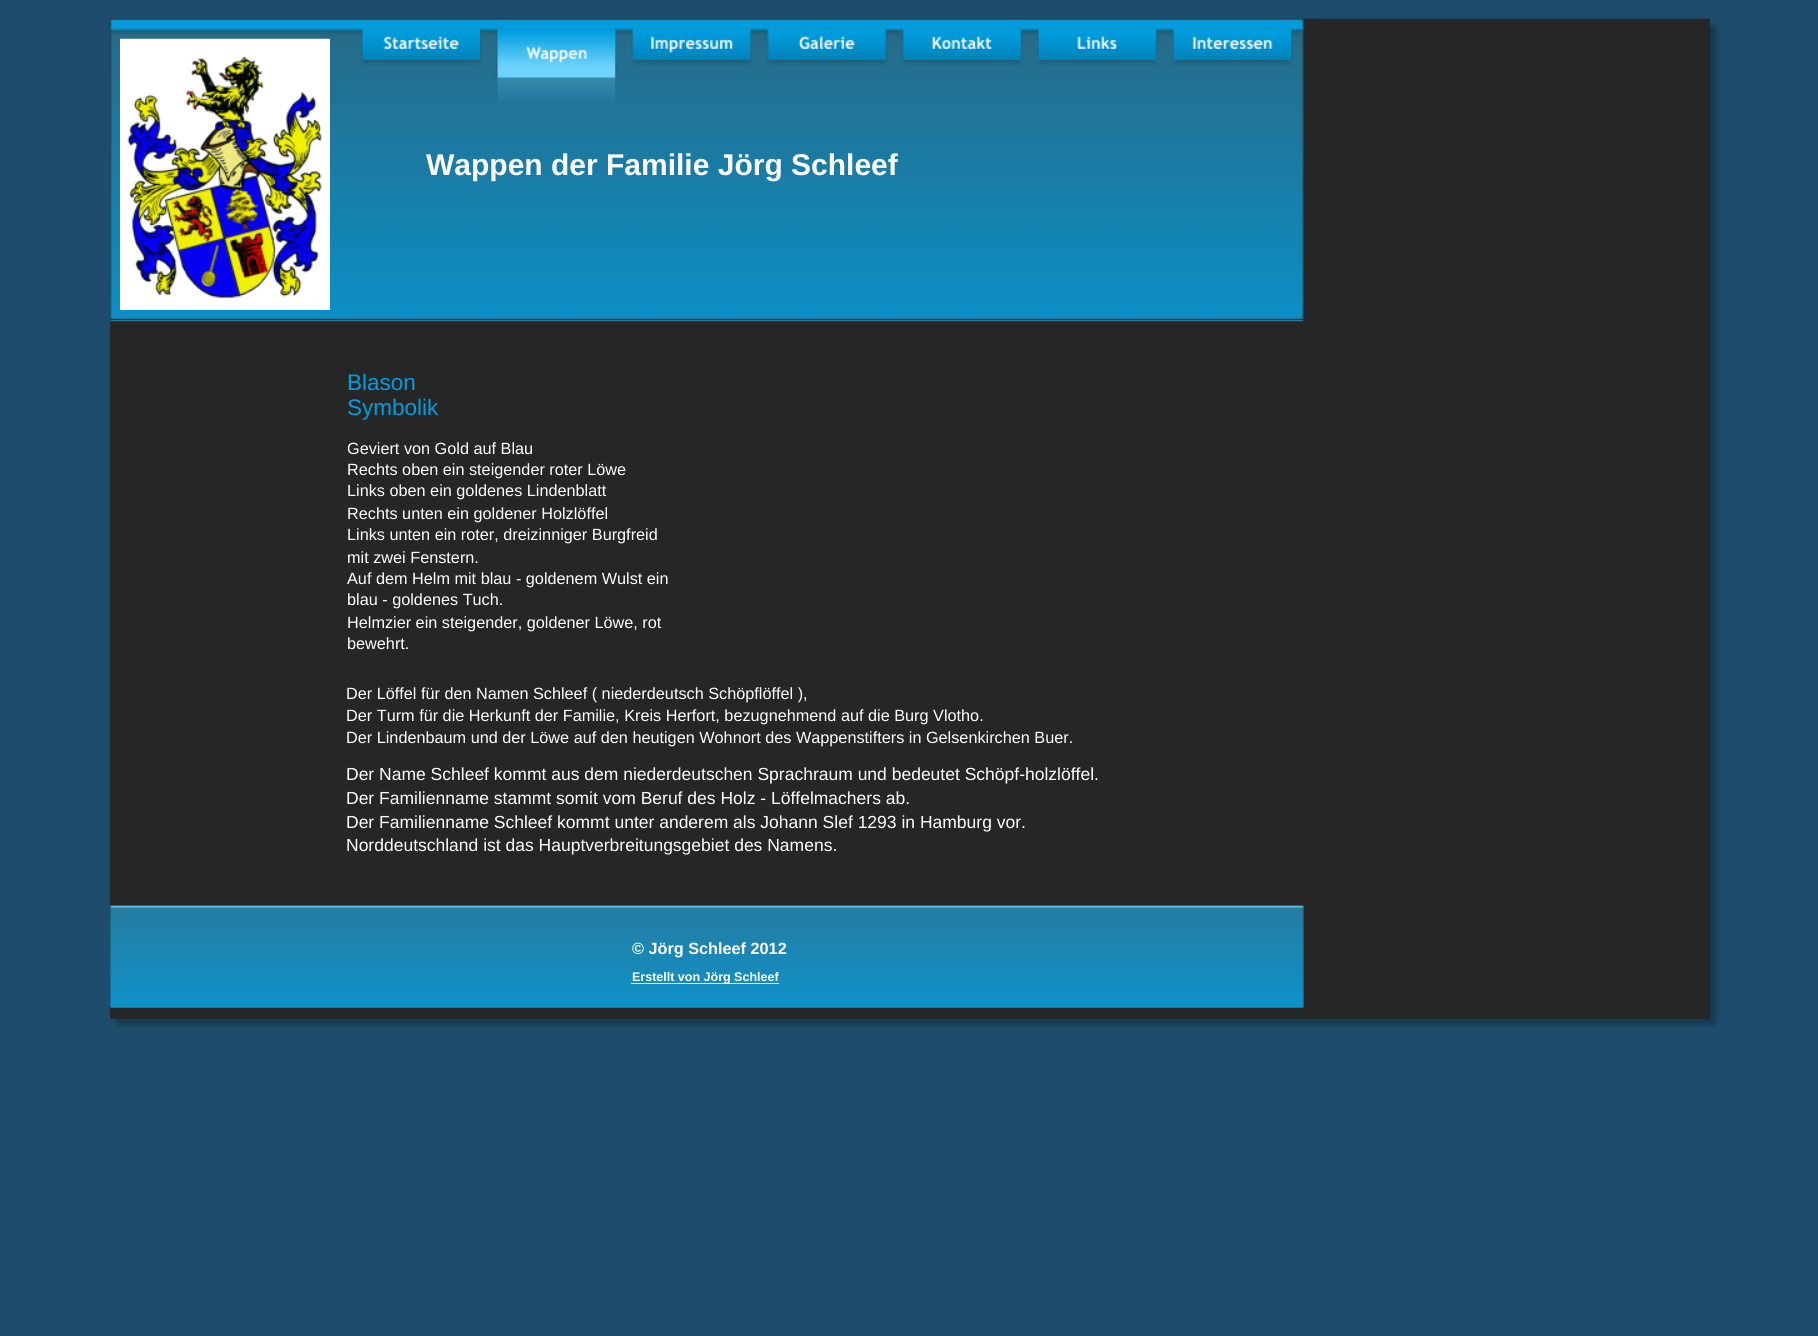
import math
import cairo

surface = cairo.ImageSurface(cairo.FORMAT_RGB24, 1818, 1336)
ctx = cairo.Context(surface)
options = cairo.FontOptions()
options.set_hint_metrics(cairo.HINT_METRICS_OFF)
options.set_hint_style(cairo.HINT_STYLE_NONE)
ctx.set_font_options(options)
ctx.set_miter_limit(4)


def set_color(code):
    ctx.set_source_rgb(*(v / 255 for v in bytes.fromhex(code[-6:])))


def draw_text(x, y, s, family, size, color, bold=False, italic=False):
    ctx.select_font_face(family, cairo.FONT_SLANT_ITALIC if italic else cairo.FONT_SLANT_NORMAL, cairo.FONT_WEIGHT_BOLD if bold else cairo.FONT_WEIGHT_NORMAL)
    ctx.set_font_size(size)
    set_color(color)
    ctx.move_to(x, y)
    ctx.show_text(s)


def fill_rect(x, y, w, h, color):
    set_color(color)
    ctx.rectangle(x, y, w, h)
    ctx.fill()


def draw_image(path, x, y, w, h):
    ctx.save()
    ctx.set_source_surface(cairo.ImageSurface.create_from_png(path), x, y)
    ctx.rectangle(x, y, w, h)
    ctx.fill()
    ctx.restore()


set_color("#1d4c6c")
ctx.paint()
draw_image("assets/img1.png", 109, 18, 1610, 1009)
draw_image("assets/img2.png", 110, 18, 1203, 304)
draw_image("assets/img3.png", 361, 28, 121, 38)
draw_image("assets/img6.png", 496, 28, 121, 37)
draw_image("assets/img4.png", 495, 28, 123, 74)
draw_image("assets/img5.png", 120, 38, 210, 272)
draw_image("assets/img7.png", 631, 28, 121, 38)
draw_image("assets/img8.png", 766, 28, 122, 38)
draw_image("assets/img9.png", 901, 28, 122, 38)
draw_image("assets/img10.png", 1037, 28, 121, 38)
draw_image("assets/img11.png", 1172, 28, 121, 38)
draw_text(426, 175, "Wappen der Familie Jörg Schleef", "Liberation Sans", 30, "#ffffff", bold=True)
draw_text(347, 390, "Blason", "Liberation Sans", 22.5, "#009ee0")
draw_text(347, 415, "Symbolik", "Liberation Sans", 22.5, "#009ee0")
draw_text(347, 454, "Geviert von Gold auf Blau", "Liberation Sans", 16.25, "#ffffff")
draw_text(347, 475, "Rechts oben ein steigender roter Löwe", "Liberation Sans", 16.25, "#ffffff")
draw_text(347, 496, "Links oben ein goldenes Lindenblatt", "Liberation Sans", 16.25, "#ffffff")
draw_text(347, 519, "Rechts unten ein goldener Holzlöffel", "Liberation Sans", 16.25, "#ffffff")
draw_text(347, 540, "Links unten ein roter, dreizinniger Burgfreid", "Liberation Sans", 16.25, "#ffffff")
draw_text(347, 563, "mit zwei Fenstern.", "Liberation Sans", 16.25, "#ffffff")
draw_text(347, 584, "Auf dem Helm mit blau - goldenem Wulst ein", "Liberation Sans", 16.25, "#ffffff")
draw_text(347, 605, "blau - goldenes Tuch.", "Liberation Sans", 16.25, "#ffffff")
draw_text(347, 628, "Helmzier ein steigender, goldener Löwe, rot", "Liberation Sans", 16.25, "#ffffff")
draw_text(347, 649, "bewehrt.", "Liberation Sans", 16.25, "#ffffff")
draw_text(346, 699, "Der Löffel für den Namen Schleef ( niederdeutsch Schöpflöffel ),", "Liberation Sans", 16.25, "#ffffff")
draw_text(346, 721, "Der Turm für die Herkunft der Familie, Kreis Herfort, bezugnehmend auf die Burg Vlotho.", "Liberation Sans", 16.25, "#ffffff")
draw_text(346, 743, "Der Lindenbaum und der Löwe auf den heutigen Wohnort des Wappenstifters in Gelsenkirchen Buer.", "Liberation Sans", 16.25, "#ffffff")
draw_text(346, 780, "Der Name Schleef kommt aus dem niederdeutschen Sprachraum und bedeutet Schöpf-holzlöffel.", "Liberation Sans", 17.5, "#ffffff")
draw_text(346, 804, "Der Familienname stammt somit vom Beruf des Holz - Löffelmachers ab.", "Liberation Sans", 17.5, "#ffffff")
draw_text(346, 828, "Der Familienname Schleef kommt unter anderem als Johann Slef 1293 in Hamburg vor.", "Liberation Sans", 17.5, "#ffffff")
draw_text(346, 851, "Norddeutschland ist das Hauptverbreitungsgebiet des Namens.", "Liberation Sans", 17.5, "#ffffff")
draw_image("assets/img12.png", 110, 905, 1194, 103)
draw_image("assets/img13.png", 110, 905, 1194, 103)
draw_text(632, 954, "© Jörg Schleef 2012", "Liberation Sans", 16.25, "#ffffff", bold=True)
fill_rect(631, 983, 148, 1, "#ffffff")
draw_text(632, 981, "Erstellt von Jörg Schleef", "Liberation Sans", 12.5, "#ffffff", bold=True)
surface.write_to_png("output.png")
